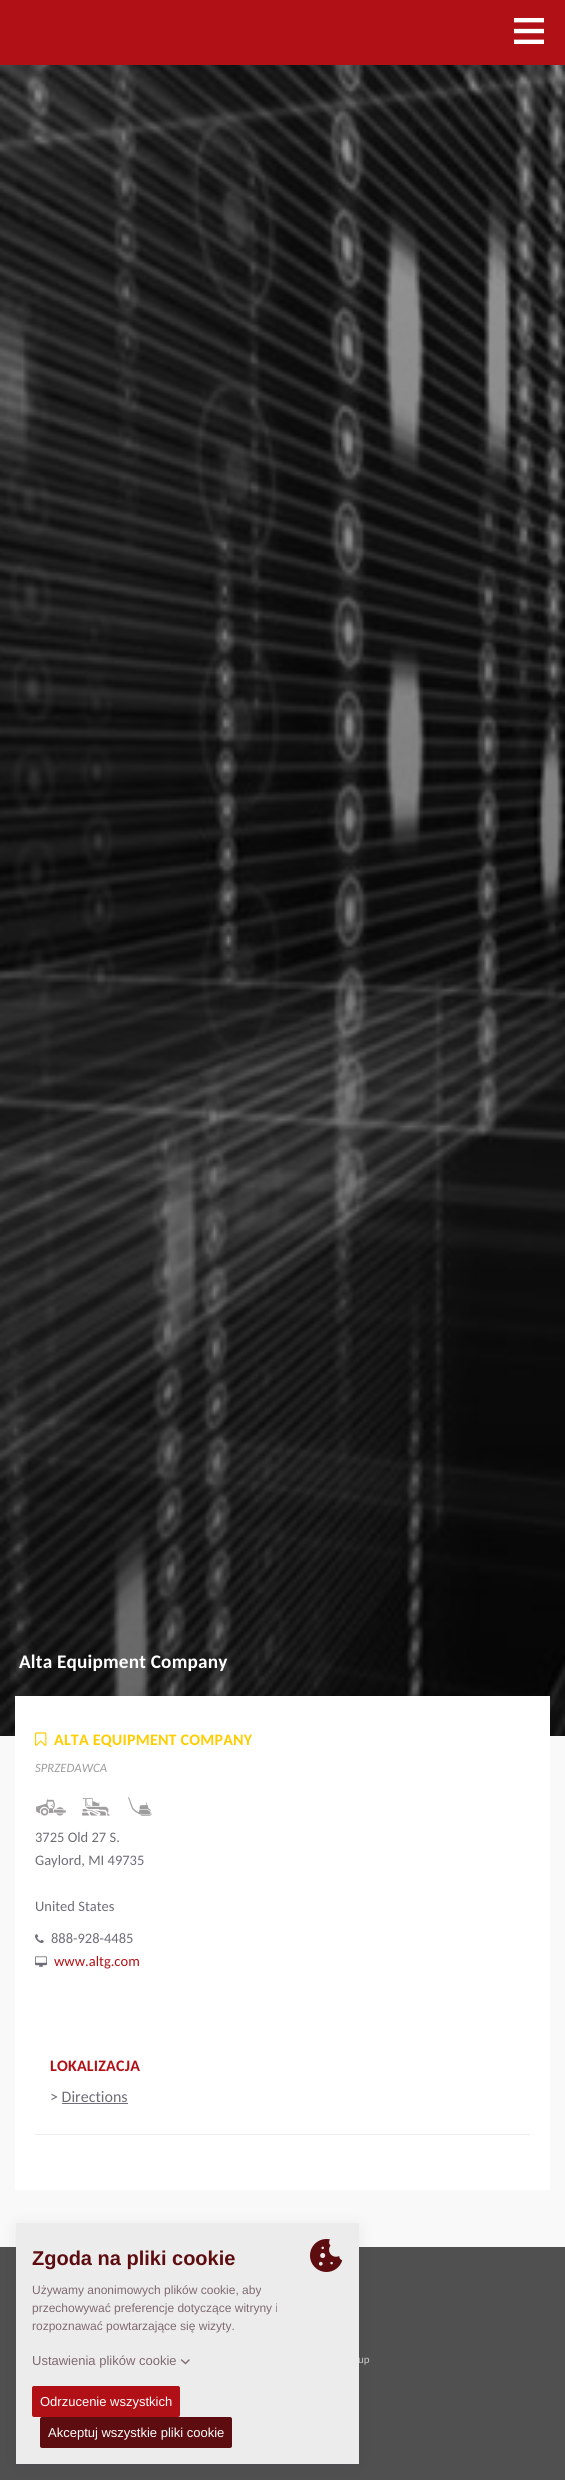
import math
import cairo

surface = cairo.ImageSurface(cairo.FORMAT_RGB24, 565, 2480)
ctx = cairo.Context(surface)
options = cairo.FontOptions()
options.set_hint_metrics(cairo.HINT_METRICS_OFF)
options.set_hint_style(cairo.HINT_STYLE_NONE)
ctx.set_font_options(options)
ctx.set_miter_limit(4)


def set_color(code):
    ctx.set_source_rgb(*(v / 255 for v in bytes.fromhex(code[-6:])))


def draw_text(x, y, s, family, size, color, bold=False, italic=False):
    ctx.select_font_face(family, cairo.FONT_SLANT_ITALIC if italic else cairo.FONT_SLANT_NORMAL, cairo.FONT_WEIGHT_BOLD if bold else cairo.FONT_WEIGHT_NORMAL)
    ctx.set_font_size(size)
    set_color(color)
    ctx.move_to(x, y)
    ctx.show_text(s)


def draw_spaced(x, y, s, letter, word):
    ctx.move_to(x, y)
    for ch in s:
        ctx.show_text(ch)
        ctx.rel_move_to(letter + word * (ch == ' '), 0)


def fill_rect(x, y, w, h, color):
    set_color(color)
    ctx.rectangle(x, y, w, h)
    ctx.fill()


def rounded_rect(x, y, w, h, r):
    ctx.new_sub_path()
    for i, (u, v) in enumerate([(x + w - r, y + h - r), (x + r, y + h - r), (x + r, y + r), (x + w - r, y + r)]):
        ctx.arc(u, v, r, i * math.pi / 2, (i + 1) * math.pi / 2)
    ctx.close_path()


def draw_shadow(x, y, w, h, r, blur, alpha):
    ctx.push_group_with_content(cairo.CONTENT_ALPHA)
    ctx.set_operator(cairo.OPERATOR_SOURCE)
    for i in range(15, -16, -2):
        e = blur * i / 6
        if min(w, h) + 2 * e > 0:
            ctx.set_source_rgba(0, 0, 0, alpha * math.erfc((i - 1) / 8.5) / 2)
            rounded_rect(x - e, y - e, w + 2 * e, h + 2 * e, max(0, min(r + e + blur * .6, min(w, h) / 2 + e)))
            ctx.fill()
    ctx.mask(ctx.pop_group())


def draw_image(path, x, y, w, h):
    ctx.save()
    ctx.set_source_surface(cairo.ImageSurface.create_from_png(path), x, y)
    ctx.rectangle(x, y, w, h)
    ctx.fill()
    ctx.restore()


set_color("#f9f9f9")
ctx.paint()
fill_rect(0, 0, 565, 65, "#b11116")
draw_image("assets/img1.png", 514, 18, 30, 26)
draw_image("assets/img2.png", 0, 65, 565, 1671)
ctx.select_font_face("Carlito", cairo.FONT_SLANT_NORMAL, cairo.FONT_WEIGHT_BOLD)
ctx.set_font_size(19.25)
set_color("#ffffff")
draw_spaced(19, 1668, "Alta Equipment Company", 0.2, 0)
fill_rect(15, 1696, 535, 494, "#ffffff")
draw_image("assets/img3.png", 35, 1732, 12, 14)
ctx.set_font_size(16)
set_color("#ffcd00")
draw_spaced(54, 1745, "ALTA EQUIPMENT COMPANY", 0.2, 0)
draw_text(35, 1772, "SPRZEDAWCA", "Carlito", 12.75, "#9f9d9d", italic=True)
draw_image("assets/img4.png", 36, 1798, 30, 18)
draw_image("assets/img5.png", 82, 1798, 28, 18)
draw_image("assets/img6.png", 128, 1797, 24, 19)
draw_text(35, 1842, "3725 Old 27 S.", "Carlito", 14.5, "#6e6e78")
draw_text(35, 1865, "Gaylord, MI 49735", "Carlito", 14.5, "#6e6e78")
draw_text(35, 1911, "United States", "Carlito", 14.5, "#6e6e78")
draw_image("assets/img7.png", 35, 1934, 9, 9)
draw_text(51, 1943, "888-928-4485", "Carlito", 14.5, "#6e6e78")
draw_image("assets/img8.png", 35, 1956, 12, 11)
draw_text(54, 1966, "www.altg.com", "Carlito", 14.5, "#b11116")
fill_rect(35, 2134, 495, 1, "#ececec")
ctx.select_font_face("Carlito", cairo.FONT_SLANT_NORMAL, cairo.FONT_WEIGHT_BOLD)
ctx.set_font_size(16)
set_color("#b11116")
draw_spaced(50, 2071, "LOKALIZACJA", 0.2, 0)
draw_text(50, 2102, "> Directions", "Carlito", 16, "#6e6e78")
fill_rect(62, 2103, 66, 1, "#6e6e78")
fill_rect(0, 2247, 565, 233, "#515050")
draw_text(358, 2363, "up", "Carlito", 11, "#cccaca")
set_color("#01013f")
draw_shadow(20, 2229, 335, 233, 0, 9.5, 0.1)
fill_rect(16, 2223, 343, 241, "#ececec")
draw_text(32, 2265, "Zgoda na pliki cookie", "Liberation Sans", 20, "#5d0c0f", bold=True)
draw_image("assets/img9.png", 310, 2239, 33, 33)
draw_text(32, 2294, "Używamy anonimowych plików cookie, aby", "Liberation Sans", 12, "#806b70")
draw_text(32, 2312, "przechowywać preferencje dotyczące witryny i", "Liberation Sans", 12, "#806b70")
draw_text(32, 2330, "rozpoznawać powtarzające się wizyty.", "Liberation Sans", 12, "#806b70")
draw_text(32, 2365, "Ustawienia plików cookie", "Liberation Sans", 13, "#806b70")
ctx.new_path()
ctx.move_to(181.5, 2360)
ctx.line_to(185.5, 2363.5)
ctx.line_to(189, 2360)
ctx.set_line_width(1.4)
ctx.set_line_cap(cairo.LINE_CAP_ROUND)
ctx.stroke()
set_color("#b11116")
rounded_rect(32, 2386, 148, 31, 2)
ctx.fill()
draw_text(40, 2406, "Odrzucenie wszystkich", "Liberation Sans", 13, "#ffffff")
set_color("#5d0c0f")
rounded_rect(40, 2417, 192, 31, 2)
ctx.fill()
draw_text(48, 2437, "Akceptuj wszystkie pliki cookie", "Liberation Sans", 13, "#ffffff")
surface.write_to_png("output.png")
